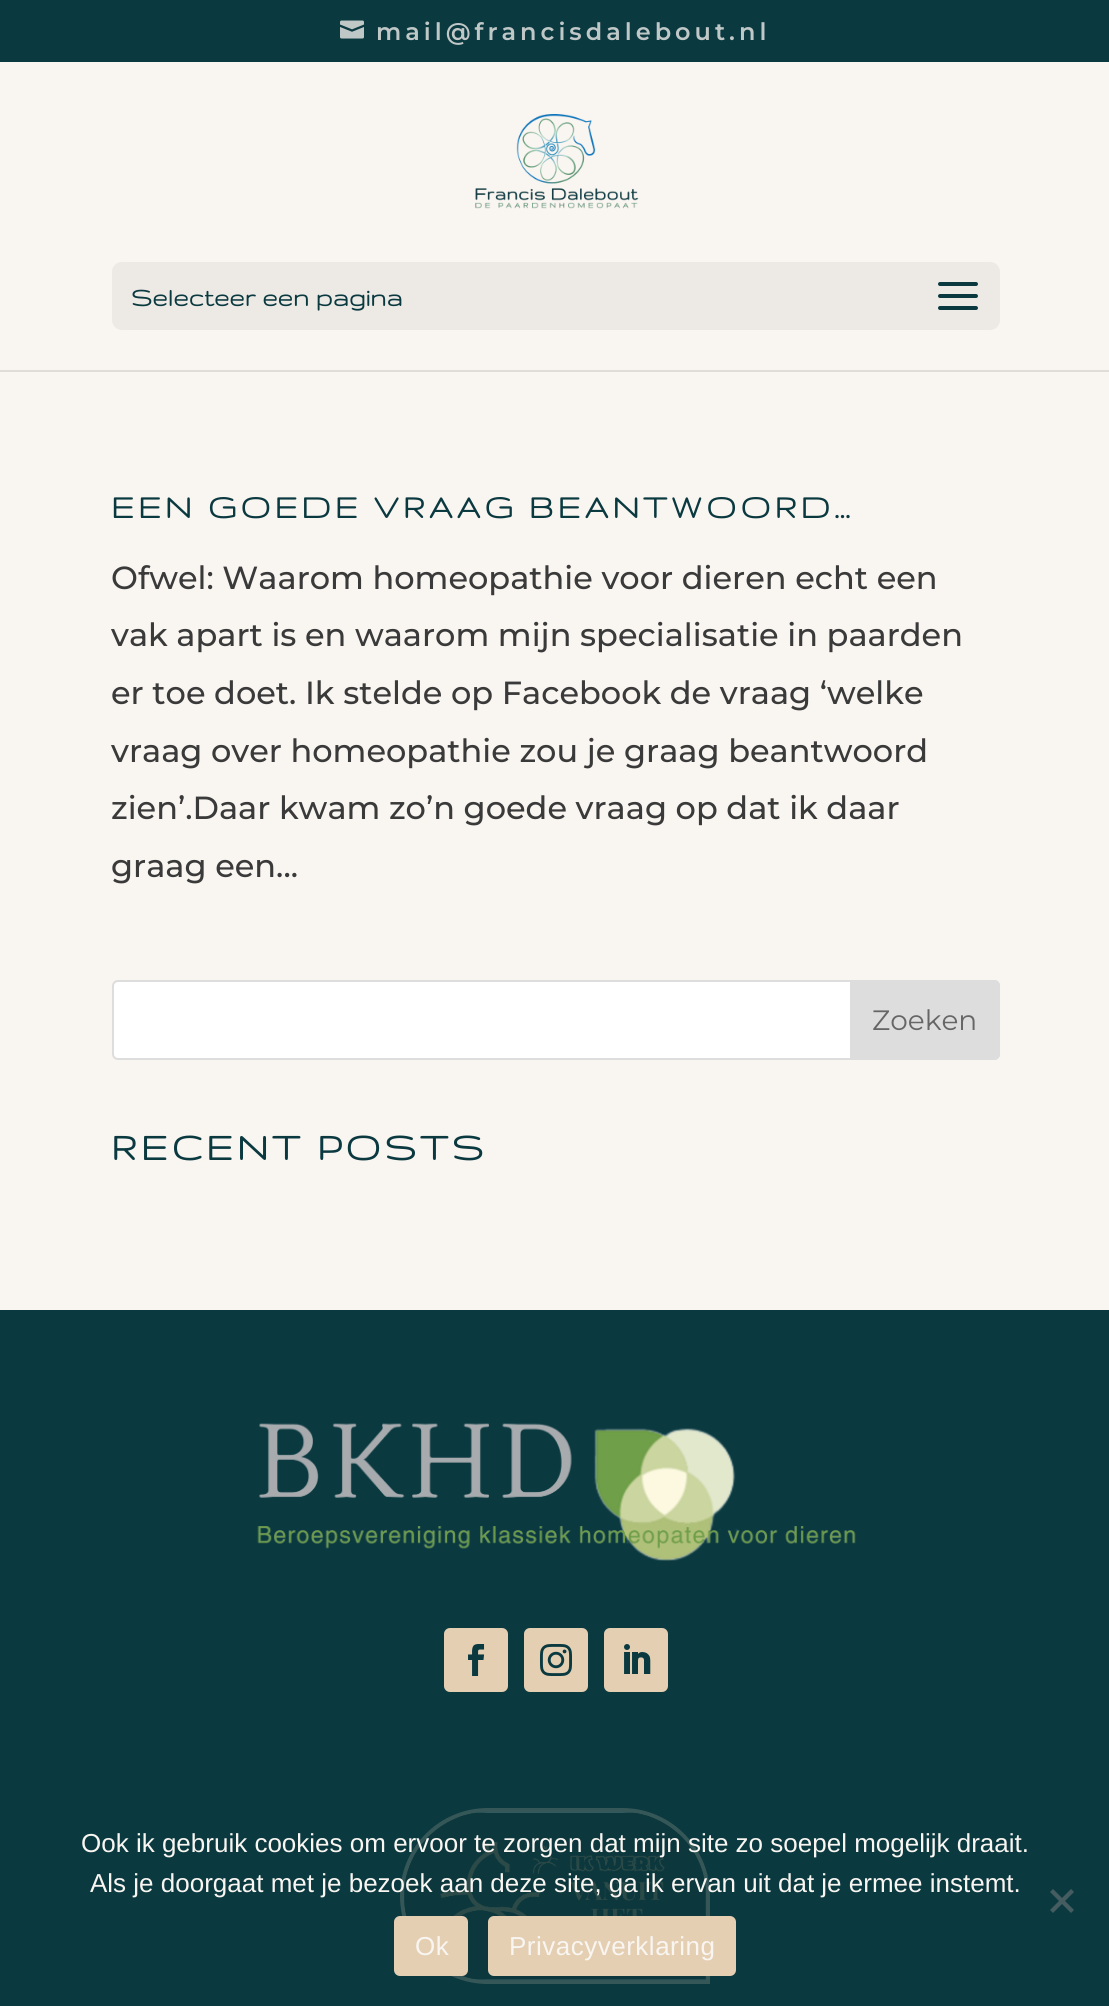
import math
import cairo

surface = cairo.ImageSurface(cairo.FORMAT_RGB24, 1109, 2006)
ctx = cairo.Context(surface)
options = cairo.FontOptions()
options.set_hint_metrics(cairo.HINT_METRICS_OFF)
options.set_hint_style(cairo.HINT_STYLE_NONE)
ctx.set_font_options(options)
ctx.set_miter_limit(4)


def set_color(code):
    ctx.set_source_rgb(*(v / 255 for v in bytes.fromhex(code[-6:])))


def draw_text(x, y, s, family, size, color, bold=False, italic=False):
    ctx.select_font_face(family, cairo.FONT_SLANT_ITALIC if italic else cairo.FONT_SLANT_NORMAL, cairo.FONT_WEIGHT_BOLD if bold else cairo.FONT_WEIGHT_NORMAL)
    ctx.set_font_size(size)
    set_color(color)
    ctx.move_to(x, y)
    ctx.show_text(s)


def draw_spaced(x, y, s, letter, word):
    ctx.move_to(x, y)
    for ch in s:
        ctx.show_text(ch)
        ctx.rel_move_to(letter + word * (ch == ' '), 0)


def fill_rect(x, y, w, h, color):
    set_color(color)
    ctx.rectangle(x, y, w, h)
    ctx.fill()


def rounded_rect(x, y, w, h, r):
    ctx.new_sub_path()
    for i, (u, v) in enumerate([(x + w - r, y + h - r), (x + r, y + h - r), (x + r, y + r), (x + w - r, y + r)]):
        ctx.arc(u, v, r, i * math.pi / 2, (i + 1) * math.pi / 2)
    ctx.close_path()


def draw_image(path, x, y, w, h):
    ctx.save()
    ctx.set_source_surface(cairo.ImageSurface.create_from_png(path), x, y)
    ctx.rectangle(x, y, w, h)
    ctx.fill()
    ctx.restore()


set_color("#f9f5f1")
ctx.paint()
fill_rect(0, 0, 1109, 62, "#0a3940")
draw_image("assets/img1.png", 340, 20, 24, 19)
ctx.select_font_face("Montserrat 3 Thin")
ctx.set_font_size(24)
set_color("#c0c8c7")
draw_spaced(376, 40, "mail@francisdalebout.nl", 4, 0)
fill_rect(0, 370, 1109, 2, "#e0ddd9")
draw_image("assets/img2.png", 475, 114, 164, 95)
set_color("#ede9e5")
rounded_rect(112, 262, 888, 68, 10)
ctx.fill()
draw_text(131, 306, "Selecteer een pagina", "Gruppo", 28, "#0a3940", bold=True)
draw_image("assets/img3.png", 938, 282, 40, 28)
ctx.set_font_size(36)
draw_spaced(111, 518, "EEN GOEDE VRAAG BEANTWOORD…", 4, 0)
draw_text(111, 589, "Ofwel: Waarom homeopathie voor dieren echt een", "Montserrat Thin", 32, "#3a3a3a")
draw_text(111, 646, "vak apart is en waarom mijn specialisatie in paarden", "Montserrat Thin", 32, "#3a3a3a")
draw_text(111, 704, "er toe doet. Ik stelde op Facebook de vraag ‘welke", "Montserrat Thin", 32, "#3a3a3a")
draw_text(111, 762, "vraag over homeopathie zou je graag beantwoord", "Montserrat Thin", 32, "#3a3a3a")
draw_text(111, 819, "zien’.Daar kwam zo’n goede vraag op dat ik daar", "Montserrat Thin", 32, "#3a3a3a")
draw_text(111, 877, "graag een...", "Montserrat Thin", 32, "#3a3a3a")
set_color("#ffffff")
rounded_rect(113, 981, 886, 78, 5)
ctx.fill_preserve()
set_color("#dddddd")
ctx.stroke()
ctx.new_path()
ctx.move_to(851, 981)
ctx.line_to(994, 981)
ctx.curve_to(997, 981, 999, 983, 999, 986)
ctx.line_to(999, 1054)
ctx.curve_to(999, 1057, 997, 1059, 994, 1059)
ctx.line_to(851, 1059)
ctx.close_path()
ctx.fill_preserve()
ctx.stroke()
draw_text(872, 1030, "Zoeken", "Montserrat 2 Thin", 28, "#666666")
ctx.select_font_face("Gruppo", cairo.FONT_SLANT_NORMAL, cairo.FONT_WEIGHT_BOLD)
ctx.set_font_size(42)
set_color("#0a3940")
draw_spaced(111, 1160, "RECENT POSTS", 4, 0)
fill_rect(0, 1310, 1109, 696, "#0a3940")
draw_image("assets/img4.png", 257, 1423, 599, 138)
set_color("#e4cfb3")
rounded_rect(444, 1628, 64, 64, 6)
ctx.fill()
draw_image("assets/img5.png", 468, 1644, 17, 32)
rounded_rect(524, 1628, 64, 64, 6)
ctx.fill()
draw_image("assets/img6.png", 540, 1644, 32, 32)
rounded_rect(604, 1628, 64, 64, 6)
ctx.fill()
draw_image("assets/img7.png", 624, 1644, 27, 30)
ctx.new_path()
ctx.move_to(488, 1810)
ctx.line_to(622, 1810)
ctx.curve_to(669.5, 1810, 708, 1848.5, 708, 1896)
ctx.line_to(708, 1982)
ctx.line_to(488, 1982)
ctx.curve_to(440.5, 1982, 402, 1943.5, 402, 1896)
ctx.curve_to(402, 1848.5, 440.5, 1810, 488, 1810)
ctx.close_path()
set_color("#365757")
ctx.set_line_width(4)
ctx.stroke()
draw_image("assets/img8.png", 404, 1812, 302, 168)
draw_text(81, 1852, "Ook ik gebruik cookies om ervoor te zorgen dat mijn site zo soepel mogelijk draait.", "Liberation Sans", 26, "#f9f5f1")
draw_text(90, 1892, "Als je doorgaat met je bezoek aan deze site, ga ik ervan uit dat je ermee instemt.", "Liberation Sans", 26, "#f9f5f1")
set_color("#455d60")
ctx.new_path()
ctx.move_to(1071, 1889)
ctx.line_to(1074, 1892)
ctx.line_to(1053, 1913)
ctx.line_to(1050, 1910)
ctx.close_path()
ctx.fill()
ctx.new_path()
ctx.move_to(1050, 1892)
ctx.line_to(1053, 1889)
ctx.line_to(1074, 1910)
ctx.line_to(1071, 1913)
ctx.close_path()
ctx.fill()
set_color("#e4cfb3")
rounded_rect(394, 1916, 74, 60, 6)
ctx.fill()
set_color("#f9f5f1")
draw_spaced(415, 1955, "Ok", 0.5, 0)
set_color("#e4cfb3")
rounded_rect(488, 1916, 248, 60, 6)
ctx.fill()
set_color("#f9f5f1")
draw_spaced(509, 1955, "Privacyverklaring", 0.5, 0)
surface.write_to_png("output.png")
